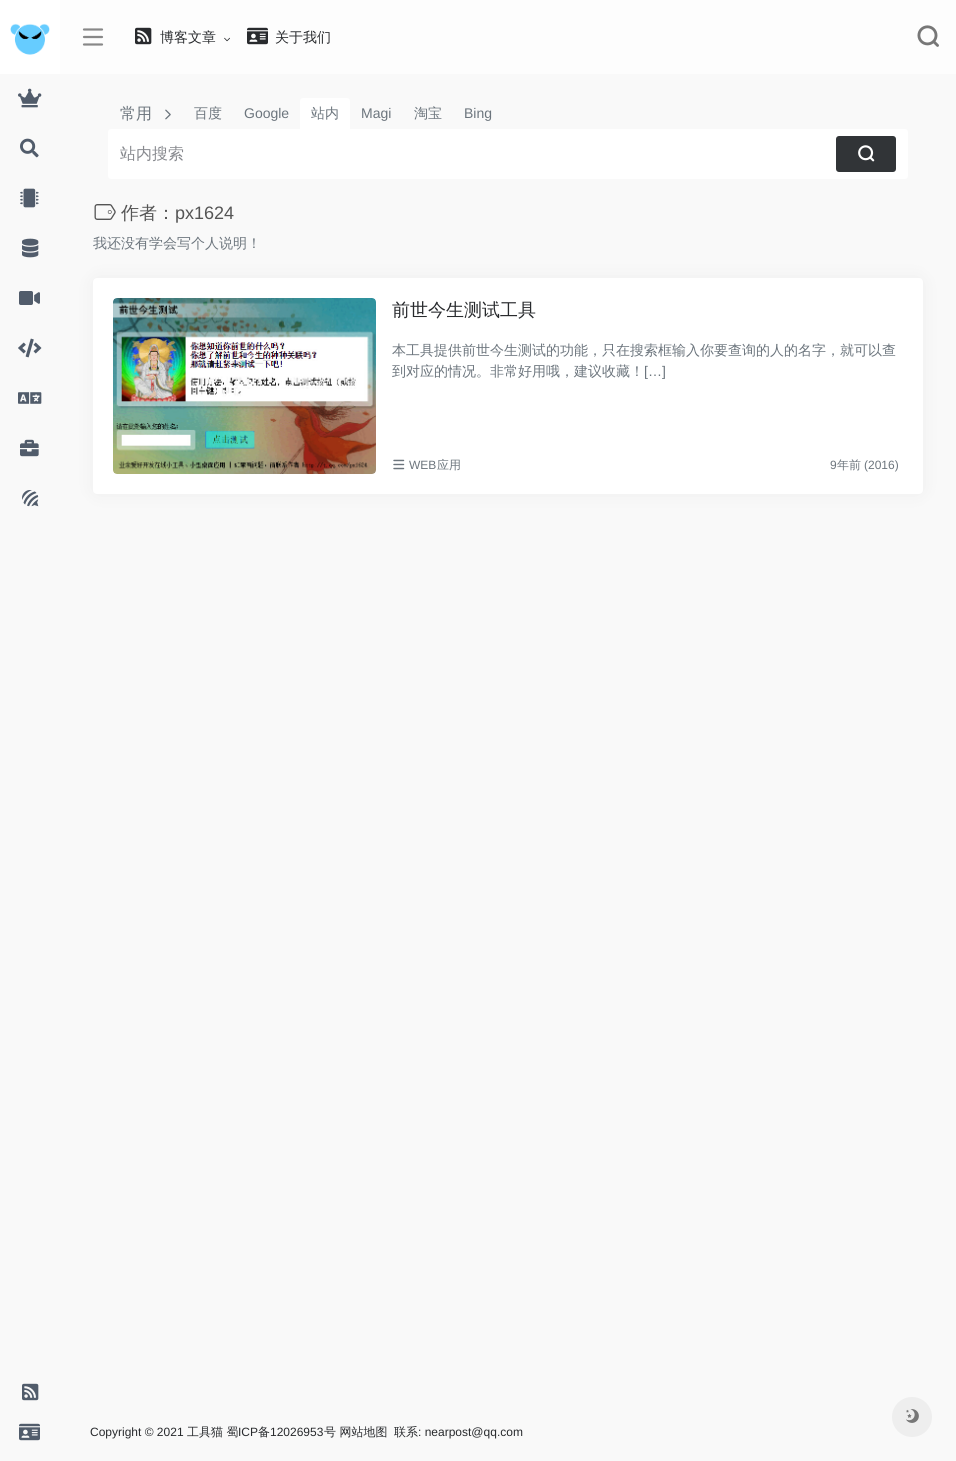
import math
import cairo

surface = cairo.ImageSurface(cairo.FORMAT_RGB24, 956, 1461)
ctx = cairo.Context(surface)
options = cairo.FontOptions()
options.set_hint_metrics(cairo.HINT_METRICS_OFF)
options.set_hint_style(cairo.HINT_STYLE_NONE)
ctx.set_font_options(options)
ctx.set_miter_limit(4)


def set_color(code):
    ctx.set_source_rgb(*(v / 255 for v in bytes.fromhex(code[-6:])))


def draw_text(x, y, s, family, size, color, bold=False, italic=False):
    ctx.select_font_face(family, cairo.FONT_SLANT_ITALIC if italic else cairo.FONT_SLANT_NORMAL, cairo.FONT_WEIGHT_BOLD if bold else cairo.FONT_WEIGHT_NORMAL)
    ctx.set_font_size(size)
    set_color(color)
    ctx.move_to(x, y)
    ctx.show_text(s)


def fill_rect(x, y, w, h, color):
    set_color(color)
    ctx.rectangle(x, y, w, h)
    ctx.fill()


def rounded_rect(x, y, w, h, r):
    ctx.new_sub_path()
    for i, (u, v) in enumerate([(x + w - r, y + h - r), (x + r, y + h - r), (x + r, y + r), (x + w - r, y + r)]):
        ctx.arc(u, v, r, i * math.pi / 2, (i + 1) * math.pi / 2)
    ctx.close_path()


def draw_shadow(x, y, w, h, r, blur, alpha):
    ctx.push_group_with_content(cairo.CONTENT_ALPHA)
    ctx.set_operator(cairo.OPERATOR_SOURCE)
    for i in range(15, -16, -2):
        e = blur * i / 6
        if min(w, h) + 2 * e > 0:
            ctx.set_source_rgba(0, 0, 0, alpha * math.erfc((i - 1) / 8.5) / 2)
            rounded_rect(x - e, y - e, w + 2 * e, h + 2 * e, max(0, min(r + e + blur * .6, min(w, h) / 2 + e)))
            ctx.fill()
    ctx.mask(ctx.pop_group())


def draw_image(path, x, y, w, h):
    ctx.save()
    ctx.set_source_surface(cairo.ImageSurface.create_from_png(path), x, y)
    ctx.rectangle(x, y, w, h)
    ctx.fill()
    ctx.restore()


set_color("#f9f9f9")
ctx.paint()
fill_rect(0, 0, 60, 74, "#ffffff")
draw_image("assets/img1.png", 10, 23, 40, 32)
draw_image("assets/img2.png", 18, 88, 24, 20)
draw_image("assets/img3.png", 20, 138, 19, 20)
draw_image("assets/img4.png", 20, 188, 19, 20)
draw_image("assets/img5.png", 22, 238, 17, 20)
draw_image("assets/img6.png", 19, 291, 21, 14)
draw_image("assets/img7.png", 18, 338, 24, 20)
draw_image("assets/img8.png", 18, 392, 24, 12)
draw_image("assets/img9.png", 20, 439, 19, 18)
draw_image("assets/img10.png", 22, 490, 17, 17)
draw_image("assets/img11.png", 22, 1383, 17, 18)
draw_image("assets/img12.png", 19, 1423, 21, 18)
fill_rect(60, 0, 896, 74, "#fdfdfd")
ctx.new_path()
ctx.move_to(84, 29.5)
ctx.line_to(102, 29.5)
ctx.move_to(84, 37)
ctx.line_to(102, 37)
ctx.move_to(84, 44.5)
ctx.line_to(102, 44.5)
set_color("#888888")
ctx.set_line_width(2.2)
ctx.set_line_cap(cairo.LINE_CAP_ROUND)
ctx.set_line_join(cairo.LINE_JOIN_ROUND)
ctx.stroke()
draw_image("assets/img13.png", 135, 27, 17, 18)
draw_text(160, 42, "博客文章", "WenQuanYi Zen Hei Medium", 14, "#282a2d")
draw_image("assets/img14.png", 224, 37, 6, 5)
draw_image("assets/img15.png", 247, 27, 21, 18)
draw_text(275, 42, "关于我们", "WenQuanYi Zen Hei Medium", 14, "#282a2d")
draw_image("assets/img16.png", 917, 25, 22, 22)
draw_text(120, 119, "常用", "WenQuanYi Zen Hei Medium", 16, "#6c757d")
draw_image("assets/img17.png", 165, 109, 6, 11)
draw_text(194, 118, "百度", "WenQuanYi Zen Hei Medium", 14, "#6c757d")
draw_text(244, 118, "Google", "Liberation Sans", 14, "#6c757d")
set_color("#ffffff")
ctx.new_path()
ctx.move_to(303, 98)
ctx.line_to(347, 98)
ctx.curve_to(348.5, 98, 350, 99.5, 350, 101)
ctx.line_to(350, 129)
ctx.line_to(300, 129)
ctx.line_to(300, 101)
ctx.curve_to(300, 99.5, 301.5, 98, 303, 98)
ctx.close_path()
ctx.fill()
draw_text(311, 118, "站内", "WenQuanYi Zen Hei Medium", 14, "#6c757d")
draw_text(361, 118, "Magi", "Liberation Sans", 14, "#6c757d")
draw_text(414, 118, "淘宝", "WenQuanYi Zen Hei Medium", 14, "#6c757d")
draw_text(464, 118, "Bing", "Liberation Sans", 14, "#6c757d")
set_color("#ffffff")
rounded_rect(108, 129, 800, 50, 3)
ctx.fill()
draw_text(120, 159, "站内搜索", "WenQuanYi Zen Hei Medium", 16, "#888a8f")
set_color("#313437")
rounded_rect(836, 136, 60, 36, 3)
ctx.fill()
draw_image("assets/img18.png", 858, 145, 17, 17)
draw_image("assets/img19.png", 94, 204, 22, 16)
draw_text(121, 219, "作者：", "WenQuanYi Zen Hei Medium", 18, "#555555")
draw_text(175, 219, "px1624", "Liberation Sans", 18, "#555555")
draw_text(93, 248, "我还没有学会写个人说明！", "WenQuanYi Zen Hei Medium", 14, "#6c757d")
set_color("#9e9e9e")
draw_shadow(98, 283, 820, 206, 0, 10, 0.2)
set_color("#ffffff")
rounded_rect(93, 278, 830, 216, 4)
ctx.fill()
draw_image("assets/img20.png", 113, 298, 263, 176)
draw_text(392, 316, "前世今生测试工具", "WenQuanYi Zen Hei Medium", 18, "#282a2d")
draw_text(392, 355, "本工具提供前世今生测试的功能，只在搜索框输入你要查询的人的名字，就可以查", "WenQuanYi Zen Hei Medium", 14, "#6c757d")
draw_text(392, 376, "到对应的情况。非常好用哦，建议收藏！", "WenQuanYi Zen Hei Medium", 14, "#6c757d")
draw_text(644, 376, "[…]", "Liberation Sans", 14, "#6c757d")
draw_image("assets/img21.png", 393, 459, 12, 11)
draw_text(409, 469, "WEB", "Liberation Sans", 12, "#6c757d")
draw_text(437, 469, "应用", "WenQuanYi Zen Hei Medium", 12, "#6c757d")
draw_text(830, 469, "9", "Liberation Sans", 12, "#6c757d")
draw_text(837, 469, "年前", "WenQuanYi Zen Hei Medium", 12, "#6c757d")
draw_text(864, 469, "(2016)", "Liberation Sans", 12, "#6c757d")
draw_text(90, 1436, "Copyright © 2021", "Liberation Sans", 12, "#282a2d")
draw_text(187, 1436, "工具猫 蜀", "WenQuanYi Zen Hei Medium", 12, "#282a2d")
draw_text(238, 1436, "ICP", "Liberation Sans", 12, "#282a2d")
draw_text(258, 1436, "备", "WenQuanYi Zen Hei Medium", 12, "#282a2d")
draw_text(270, 1436, "12026953", "Liberation Sans", 12, "#282a2d")
draw_text(324, 1436, "号 网站地图", "WenQuanYi Zen Hei Medium", 12, "#282a2d")
draw_text(394, 1436, "联系", "WenQuanYi Zen Hei Medium", 12, "#282a2d")
draw_text(418, 1436, ": nearpost@qq.com", "Liberation Sans", 12, "#282a2d")
set_color("#eeeeee")
ctx.new_path()
ctx.arc(912, 1417, 20, 0, 2 * math.pi)
ctx.fill()
draw_image("assets/img22.png", 906, 1409, 13, 14)
surface.write_to_png("output.png")
